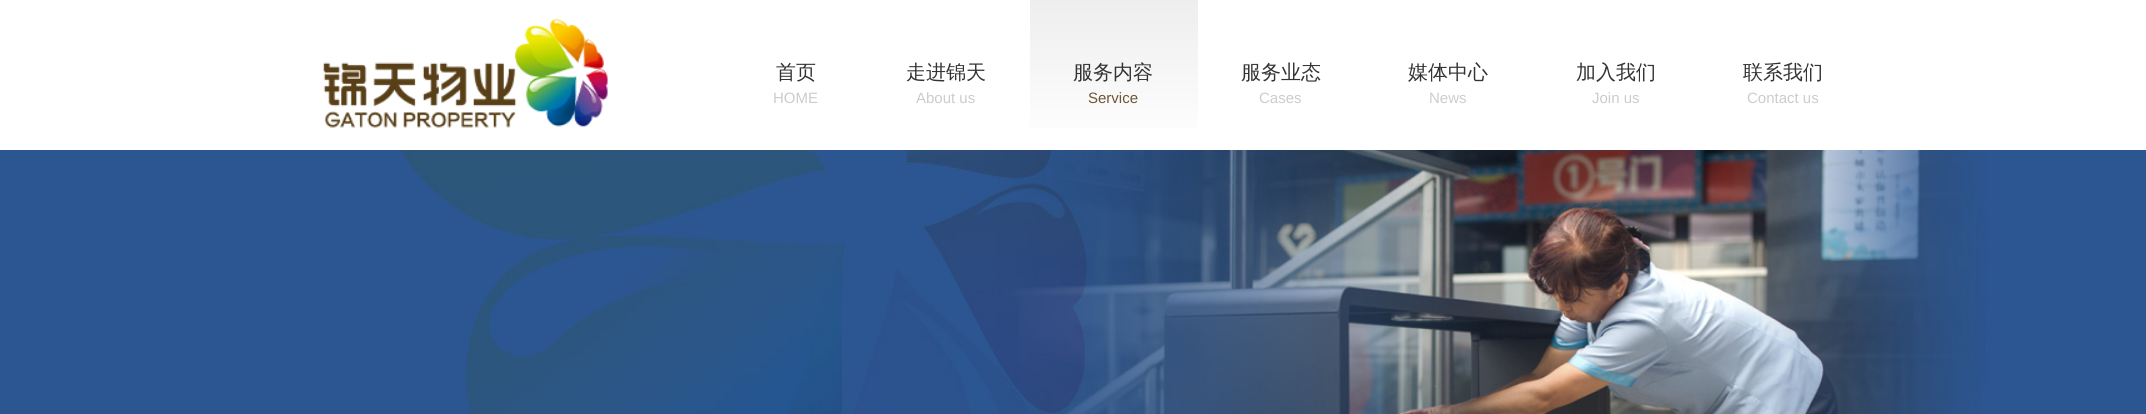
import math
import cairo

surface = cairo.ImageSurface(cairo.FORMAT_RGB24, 2146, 414)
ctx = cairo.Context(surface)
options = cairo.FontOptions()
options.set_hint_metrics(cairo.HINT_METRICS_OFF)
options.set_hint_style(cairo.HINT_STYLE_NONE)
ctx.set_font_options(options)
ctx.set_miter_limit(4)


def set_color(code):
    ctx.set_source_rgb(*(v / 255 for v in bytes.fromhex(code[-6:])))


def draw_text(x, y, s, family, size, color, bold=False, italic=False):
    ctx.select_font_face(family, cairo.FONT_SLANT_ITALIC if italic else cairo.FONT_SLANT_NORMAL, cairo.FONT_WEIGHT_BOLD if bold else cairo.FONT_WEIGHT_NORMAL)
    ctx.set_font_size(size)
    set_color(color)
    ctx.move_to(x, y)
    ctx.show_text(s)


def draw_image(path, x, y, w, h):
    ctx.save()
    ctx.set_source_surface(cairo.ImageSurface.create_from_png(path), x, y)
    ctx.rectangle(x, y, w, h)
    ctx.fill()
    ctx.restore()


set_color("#ffffff")
ctx.paint()
draw_image("assets/img1.png", 323, 18, 285, 110)
draw_text(776, 79, "首页", "WenQuanYi Zen Hei Medium", 20, "#333333")
draw_text(773, 103, "HOME", "Liberation Sans", 15, "#cccccc")
draw_text(906, 79, "走进锦天", "WenQuanYi Zen Hei Medium", 20, "#333333")
draw_text(916, 103, "About us", "Liberation Sans", 15, "#cccccc")
gradient = cairo.LinearGradient(1114, 0, 1114, 150)
gradient.add_color_stop_rgba(0, 0.933, 0.933, 0.933, 1)
gradient.add_color_stop_rgba(1, 1, 1, 1, 1)
ctx.set_source(gradient)
ctx.rectangle(1030, 0, 168, 128)
ctx.fill()
draw_text(1073, 79, "服务内容", "WenQuanYi Zen Hei Medium", 20, "#333333")
draw_text(1088, 103, "Service", "Liberation Sans", 15, "#6f5435")
draw_text(1241, 79, "服务业态", "WenQuanYi Zen Hei Medium", 20, "#333333")
draw_text(1259, 103, "Cases", "Liberation Sans", 15, "#cccccc")
draw_text(1408, 79, "媒体中心", "WenQuanYi Zen Hei Medium", 20, "#333333")
draw_text(1429, 103, "News", "Liberation Sans", 15, "#cccccc")
draw_text(1576, 79, "加入我们", "WenQuanYi Zen Hei Medium", 20, "#333333")
draw_text(1592, 103, "Join us", "Liberation Sans", 15, "#cccccc")
draw_text(1743, 79, "联系我们", "WenQuanYi Zen Hei Medium", 20, "#333333")
draw_text(1747, 103, "Contact us", "Liberation Sans", 15, "#cccccc")
draw_image("assets/img2.png", 0, 150, 2146, 264)
surface.write_to_png("output.png")
